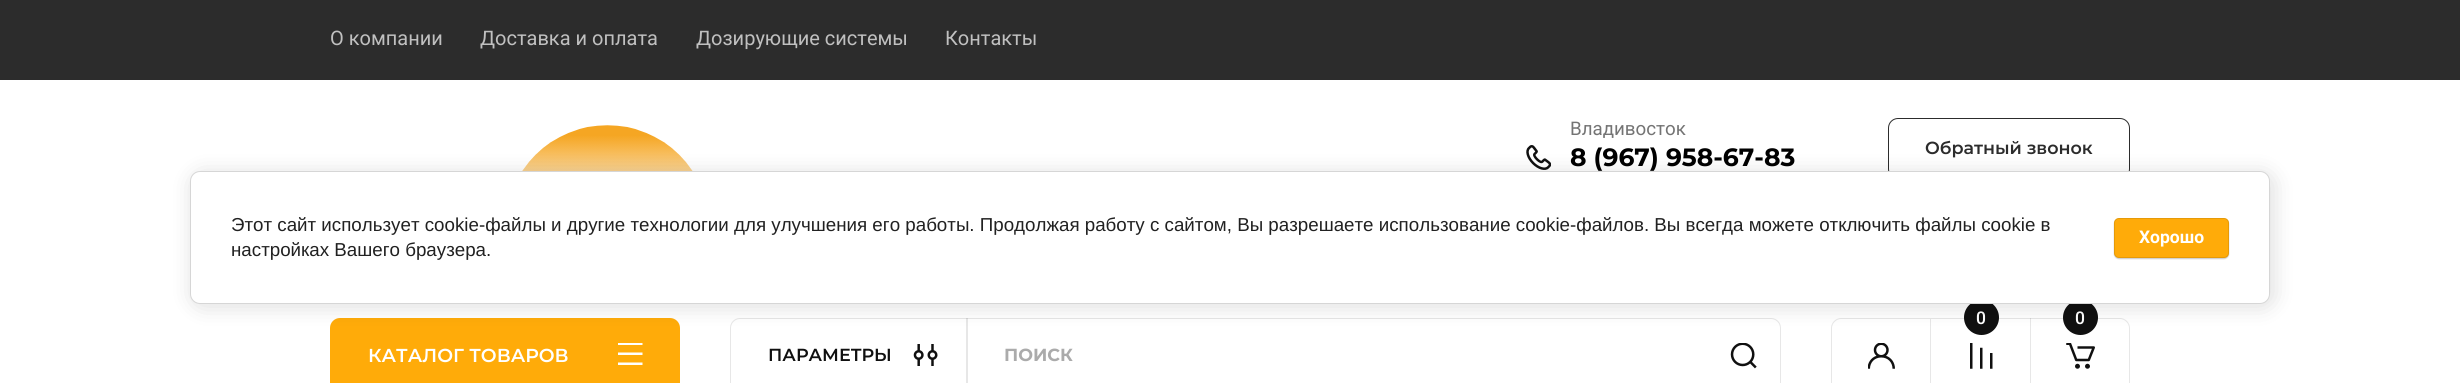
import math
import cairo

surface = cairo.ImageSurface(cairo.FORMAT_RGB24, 2460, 383)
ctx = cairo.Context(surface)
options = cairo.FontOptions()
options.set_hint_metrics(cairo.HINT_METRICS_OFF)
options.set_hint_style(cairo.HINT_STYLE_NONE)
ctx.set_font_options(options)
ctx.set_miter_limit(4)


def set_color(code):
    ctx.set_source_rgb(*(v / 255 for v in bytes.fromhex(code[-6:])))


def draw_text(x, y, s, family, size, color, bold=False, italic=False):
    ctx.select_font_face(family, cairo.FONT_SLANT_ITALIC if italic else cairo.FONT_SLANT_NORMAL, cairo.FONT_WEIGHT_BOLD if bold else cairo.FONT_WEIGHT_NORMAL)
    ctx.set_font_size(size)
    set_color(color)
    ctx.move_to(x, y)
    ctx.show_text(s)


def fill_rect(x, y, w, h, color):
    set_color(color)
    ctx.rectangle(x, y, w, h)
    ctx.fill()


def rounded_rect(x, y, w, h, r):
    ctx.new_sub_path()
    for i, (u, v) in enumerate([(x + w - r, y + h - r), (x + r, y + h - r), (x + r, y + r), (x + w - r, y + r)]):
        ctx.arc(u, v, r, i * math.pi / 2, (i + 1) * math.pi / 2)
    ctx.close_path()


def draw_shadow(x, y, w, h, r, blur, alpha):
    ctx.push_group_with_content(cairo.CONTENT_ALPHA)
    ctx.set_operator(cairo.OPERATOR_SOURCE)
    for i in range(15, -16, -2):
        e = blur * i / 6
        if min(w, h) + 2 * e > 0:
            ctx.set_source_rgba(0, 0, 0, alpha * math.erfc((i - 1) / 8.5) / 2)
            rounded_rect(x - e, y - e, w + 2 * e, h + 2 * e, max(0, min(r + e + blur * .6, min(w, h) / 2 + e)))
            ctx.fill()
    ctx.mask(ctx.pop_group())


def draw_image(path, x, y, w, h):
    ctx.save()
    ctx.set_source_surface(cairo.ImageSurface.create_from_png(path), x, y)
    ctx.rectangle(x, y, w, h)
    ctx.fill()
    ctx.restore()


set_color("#ffffff")
ctx.paint()
fill_rect(0, 0, 2460, 80, "#2c2c2c")
draw_text(330, 45, "О компании", "Roboto", 20, "#c0c0c0")
draw_text(480, 45, "Доставка и оплата", "Roboto", 20, "#c0c0c0")
draw_text(696, 45, "Дозирующие системы", "Roboto", 20, "#c0c0c0")
draw_text(945, 45, "Контакты", "Roboto", 20, "#c0c0c0")
draw_image("assets/img1.png", 522, 125, 171, 46)
draw_text(1570, 135, "Владивосток", "Roboto", 18.75, "#747474")
draw_image("assets/img2.png", 1526, 145, 25, 25)
draw_text(1570, 166, "8 (967) 958-67-83", "Montserrat", 25, "#000000", bold=True)
rounded_rect(1888.5, 118.5, 241, 60, 9.5)
set_color("#2c2c2c")
ctx.set_line_width(1)
ctx.stroke()
draw_text(1925, 154, "Обратный звонок", "Montserrat SemiBold", 17.5, "#2c2c2c")
set_color("#ffab09")
rounded_rect(330, 318, 350, 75, 10)
ctx.fill()
draw_text(368, 362, "КАТАЛОГ ТОВАРОВ", "Montserrat SemiBold", 18.75, "#ffffff")
draw_image("assets/img3.png", 618, 343, 25, 22)
rounded_rect(730.5, 318.5, 1050, 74, 9.5)
set_color("#e7e7e7")
ctx.stroke()
draw_text(768, 361, "ПАРАМЕТРЫ", "Montserrat SemiBold", 17.5, "#101010")
draw_image("assets/img4.png", 913, 344, 25, 22)
ctx.set_source_rgba(0.063, 0.063, 0.063, 0.1)
ctx.new_path()
ctx.move_to(966, 318)
ctx.line_to(966, 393)
ctx.line_to(1771, 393)
ctx.curve_to(1773, 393, 1776, 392, 1777, 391)
ctx.curve_to(1776, 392, 1774, 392, 1772, 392)
ctx.line_to(968, 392)
ctx.line_to(968, 318)
ctx.close_path()
ctx.fill()
draw_text(1004, 361, "ПОИСК", "Montserrat", 17.5, "#ababab", bold=True)
draw_image("assets/img5.png", 1730, 343, 27, 26)
ctx.new_path()
ctx.move_to(1841, 318.5)
ctx.line_to(1930.5, 318.5)
ctx.line_to(1930.5, 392.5)
ctx.line_to(1841, 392.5)
ctx.curve_to(1836, 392.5, 1831.5, 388, 1831.5, 383)
ctx.line_to(1831.5, 328)
ctx.curve_to(1831.5, 323, 1836, 318.5, 1841, 318.5)
ctx.close_path()
set_color("#e7e7e7")
ctx.stroke()
draw_image("assets/img6.png", 1868, 343, 27, 26)
fill_rect(1931, 318, 100, 1, "#e7e7e7")
set_color("#101010")
ctx.arc(1981.5, 317.5, 17.5, 0, 2 * math.pi)
ctx.fill()
draw_text(1976, 324, "0", "Roboto Medium", 17.5, "#ffffff")
draw_image("assets/img7.png", 1970, 343, 23, 26)
ctx.new_path()
ctx.move_to(2030.5, 318.5)
ctx.line_to(2120, 318.5)
ctx.curve_to(2125, 318.5, 2129.5, 323, 2129.5, 328)
ctx.line_to(2129.5, 383)
ctx.curve_to(2129.5, 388, 2125, 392.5, 2120, 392.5)
ctx.line_to(2030.5, 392.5)
ctx.close_path()
ctx.set_source_rgba(0.063, 0.063, 0.063, 0.1)
ctx.stroke()
set_color("#101010")
ctx.arc(2080.5, 317.5, 17.5, 0, 2 * math.pi)
ctx.fill()
draw_text(2075, 324, "0", "Roboto Medium", 17.5, "#ffffff")
draw_image("assets/img8.png", 2066, 343, 29, 26)
set_color("#000000")
draw_shadow(193, 174, 2080, 132, 10, 11, 0.14)
set_color("#ffffff")
rounded_rect(190.5, 171.5, 2079, 132, 9.5)
ctx.fill_preserve()
set_color("#d6d6d6")
ctx.stroke()
draw_text(231, 231, "Этот сайт использует cookie-файлы и другие технологии для улучшения его работы. Продолжая работу с сайтом, Вы разрешаете использование cookie-файлов. Вы всегда можете отключить файлы cookie в", "Liberation Sans", 18.75, "#212121")
draw_text(231, 256, "настройках Вашего браузера.", "Liberation Sans", 18.75, "#212121")
set_color("#000000")
draw_shadow(2114, 219, 115, 40, 5, 0.5, 0.2)
set_color("#ffab09")
rounded_rect(2114, 218, 115, 40, 5)
ctx.fill()
rounded_rect(2114.5, 218.5, 114, 39, 4.5)
ctx.set_source_rgba(0, 0, 0, 0.1)
ctx.stroke()
draw_text(2139, 243, "Хорошо", "Roboto", 17.5, "#ffffff", bold=True)
surface.write_to_png("output.png")
